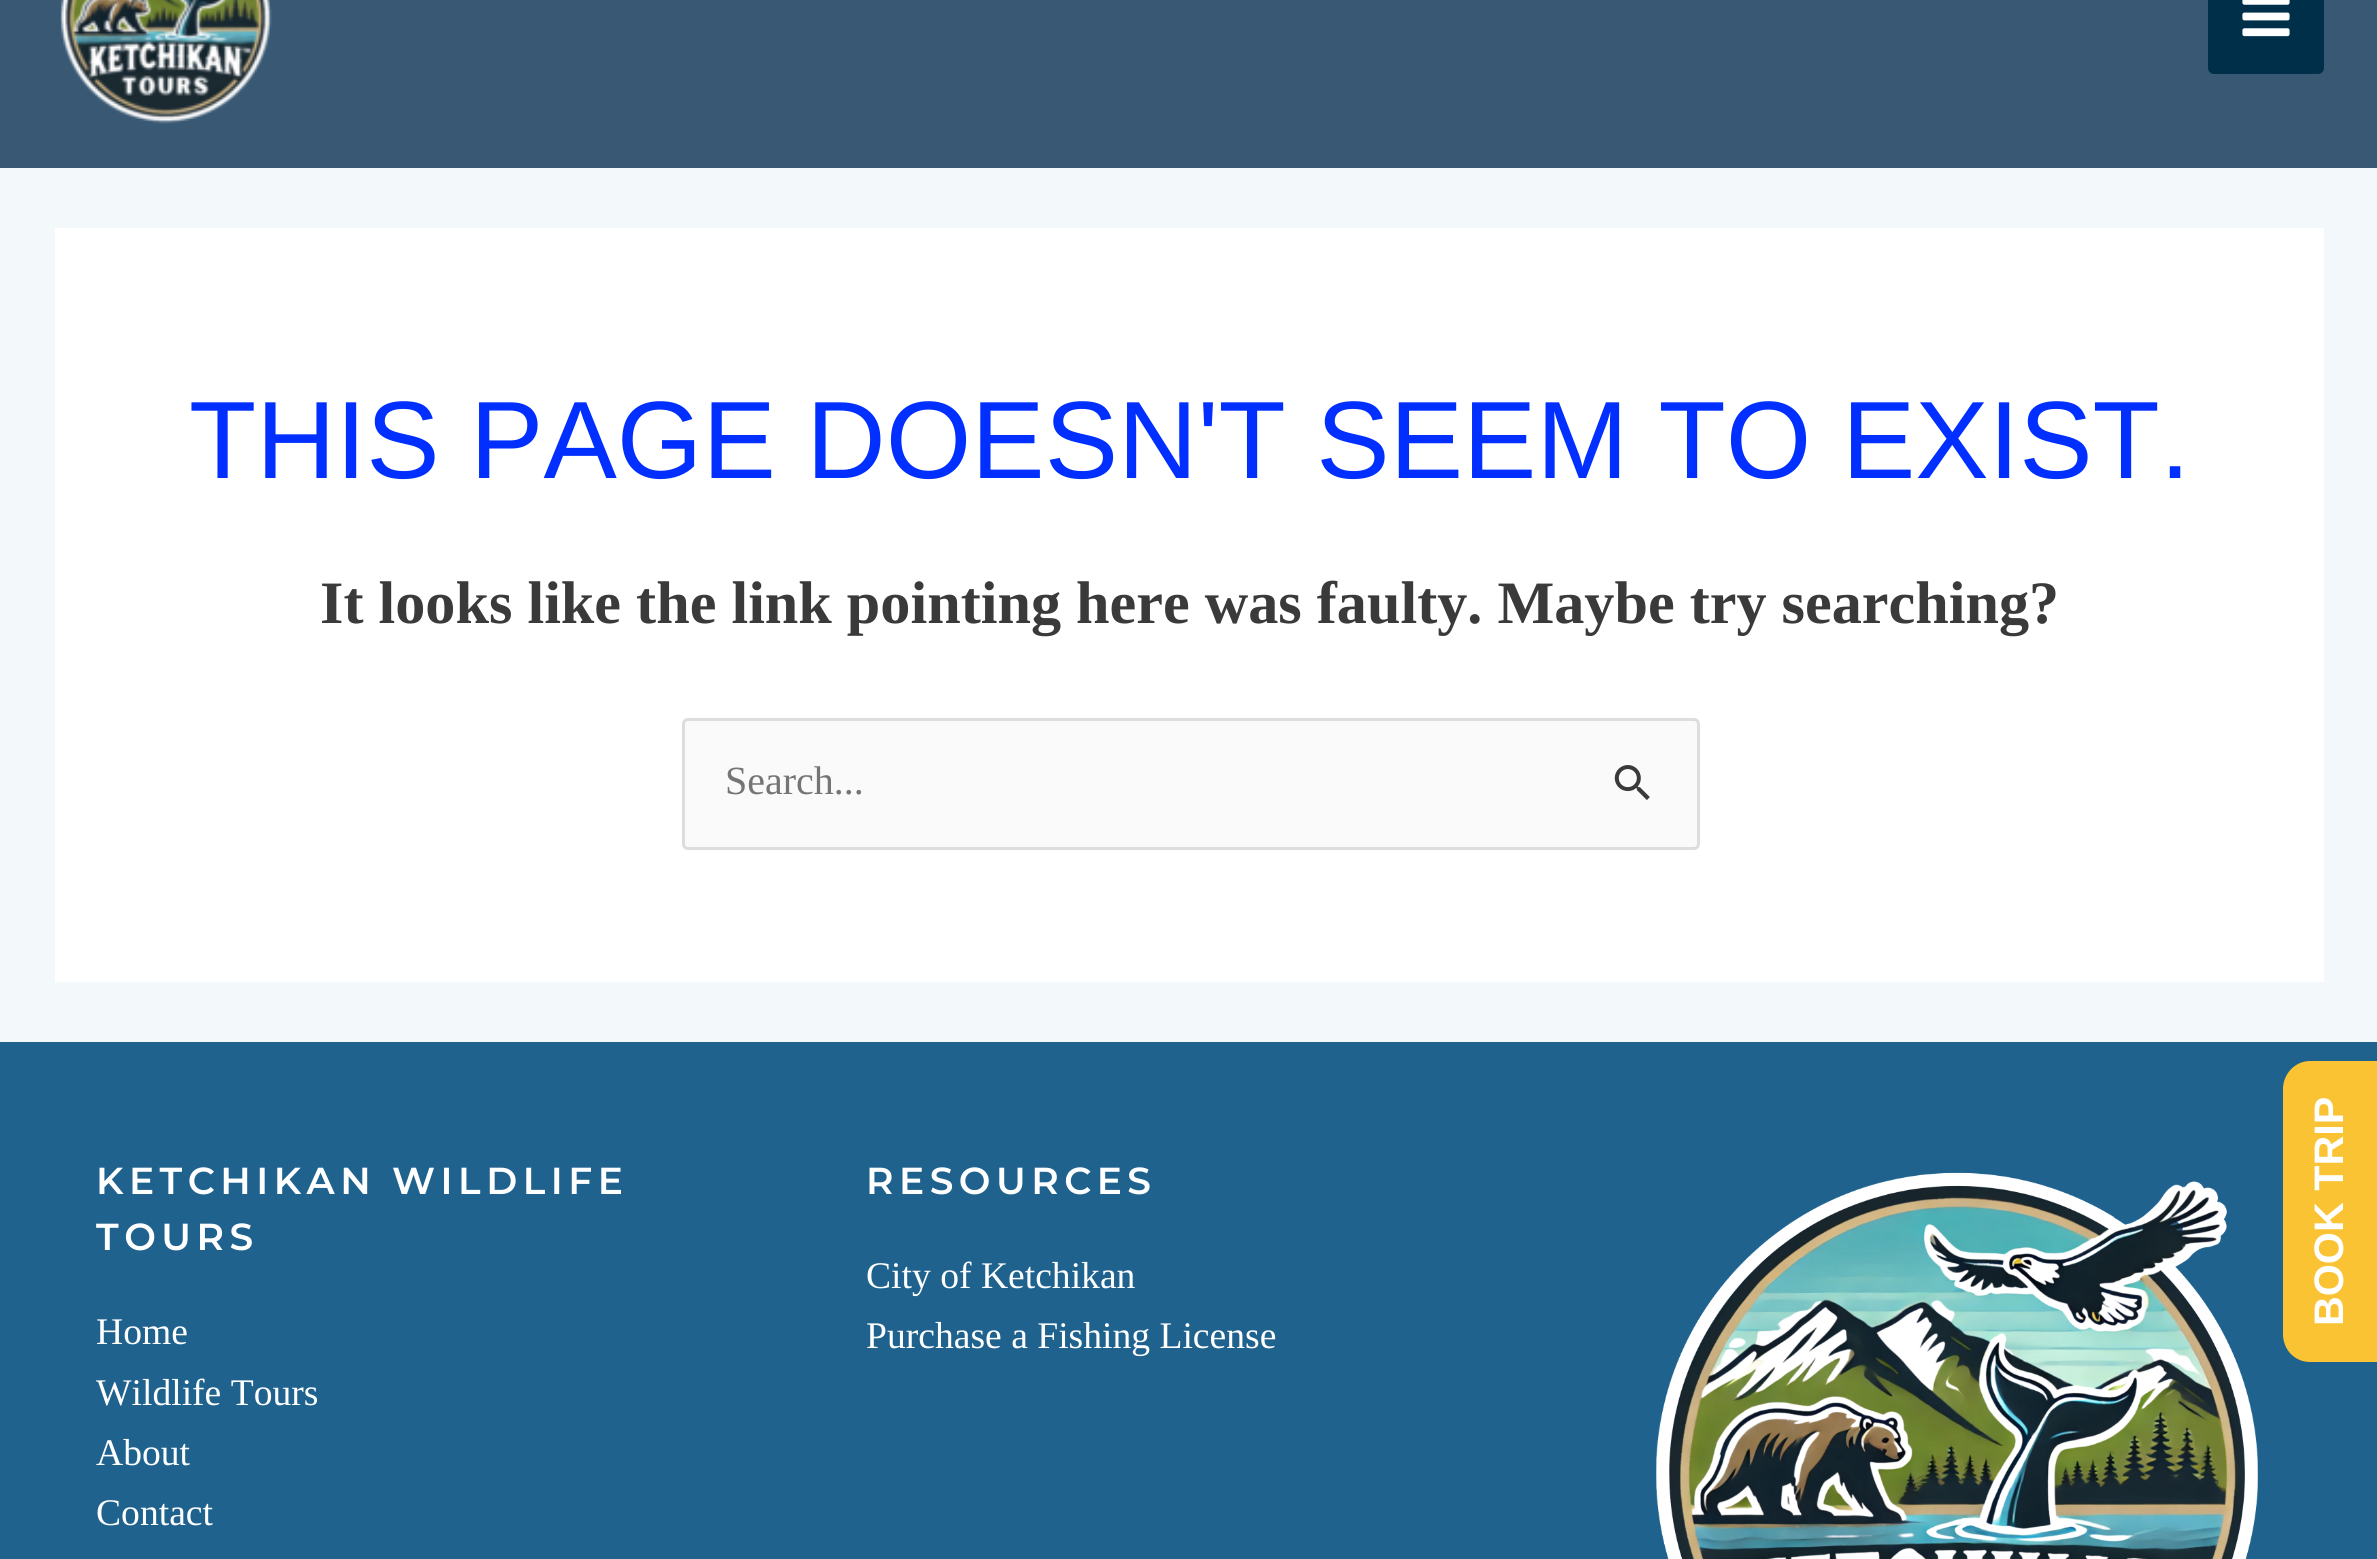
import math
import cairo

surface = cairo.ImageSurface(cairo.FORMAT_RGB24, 2377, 1559)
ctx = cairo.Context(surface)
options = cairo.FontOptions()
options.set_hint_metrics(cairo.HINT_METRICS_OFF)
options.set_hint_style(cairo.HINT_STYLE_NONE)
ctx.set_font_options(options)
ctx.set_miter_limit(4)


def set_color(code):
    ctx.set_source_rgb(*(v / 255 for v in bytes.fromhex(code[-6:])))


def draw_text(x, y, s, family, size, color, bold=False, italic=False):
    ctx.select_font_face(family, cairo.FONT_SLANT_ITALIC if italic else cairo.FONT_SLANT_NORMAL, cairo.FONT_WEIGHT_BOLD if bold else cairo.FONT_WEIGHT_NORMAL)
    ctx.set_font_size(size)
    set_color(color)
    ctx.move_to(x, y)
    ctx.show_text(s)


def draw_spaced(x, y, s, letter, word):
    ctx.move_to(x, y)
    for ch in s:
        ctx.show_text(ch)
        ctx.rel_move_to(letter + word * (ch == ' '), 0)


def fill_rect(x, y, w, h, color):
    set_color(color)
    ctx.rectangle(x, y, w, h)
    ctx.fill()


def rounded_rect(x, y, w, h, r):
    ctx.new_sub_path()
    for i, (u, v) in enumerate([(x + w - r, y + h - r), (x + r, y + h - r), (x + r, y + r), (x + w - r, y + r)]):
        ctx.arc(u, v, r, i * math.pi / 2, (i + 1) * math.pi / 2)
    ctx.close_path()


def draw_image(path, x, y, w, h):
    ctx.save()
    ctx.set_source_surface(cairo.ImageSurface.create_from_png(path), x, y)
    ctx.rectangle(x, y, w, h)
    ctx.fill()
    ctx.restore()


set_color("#f3f9fb")
ctx.paint()
fill_rect(0, 0, 2377, 168, "#395873")
draw_image("assets/img1.png", 60, 0, 212, 124)
set_color("#003049")
rounded_rect(2208, -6, 116, 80, 6)
ctx.fill()
draw_image("assets/img2.png", 2242, 0, 48, 37)
fill_rect(55, 228, 2269, 754, "#ffffff")
draw_text(189, 478, "THIS PAGE DOESN'T SEEM TO EXIST.", "Liberation Sans", 110, "#002fff")
draw_text(320, 623, "It looks like the link pointing here was faulty. Maybe try searching?", "Liberation Serif", 60.2, "#3a3a3a", bold=True)
set_color("#fafafa")
rounded_rect(683.5, 719.5, 1015, 129, 4.5)
ctx.fill_preserve()
set_color("#dddddd")
ctx.set_line_width(3)
ctx.stroke()
draw_text(725, 794, "Search...", "Liberation Serif", 40, "#757575")
draw_image("assets/img3.png", 1614, 765, 36, 35)
fill_rect(0, 1042, 2377, 517, "#1f628e")
ctx.select_font_face("Montserrat SemiBold")
ctx.set_font_size(37.6)
set_color("#ffffff")
draw_spaced(96, 1194, "KETCHIKAN WILDLIFE", 5.5, 0)
draw_spaced(96, 1250, "TOURS", 5.5, 0)
draw_text(96, 1344, "Home", "Liberation Serif", 37.6, "#ffffff")
draw_text(96, 1405, "Wildlife Tours", "Liberation Serif", 37.6, "#ffffff")
draw_text(96, 1465, "About", "Liberation Serif", 37.6, "#ffffff")
draw_text(96, 1525, "Contact", "Liberation Serif", 37.6, "#ffffff")
ctx.select_font_face("Montserrat SemiBold")
draw_spaced(866, 1194, "RESOURCES", 5.5, 0)
draw_text(866, 1288, "City of Ketchikan", "Liberation Serif", 37.6, "#ffffff")
draw_text(866, 1348, "Purchase a Fishing License", "Liberation Serif", 37.6, "#ffffff")
draw_image("assets/img4.png", 1656, 1172, 602, 387)
set_color("#fac334")
ctx.new_path()
ctx.move_to(2283, 1334)
ctx.line_to(2283, 1089)
ctx.curve_to(2283, 1074, 2295, 1061, 2310, 1061)
ctx.line_to(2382, 1061)
ctx.line_to(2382, 1362)
ctx.line_to(2310, 1362)
ctx.curve_to(2295, 1362, 2283, 1350, 2283, 1334)
ctx.close_path()
ctx.fill()
ctx.save()
ctx.translate(2343, 1326)
ctx.rotate(-90 * math.pi / 180)
draw_text(0, 0, "BOOK TRIP", "Liberation Sans", 41.25, "#ffffff", bold=True)
ctx.restore()
surface.write_to_png("output.png")
